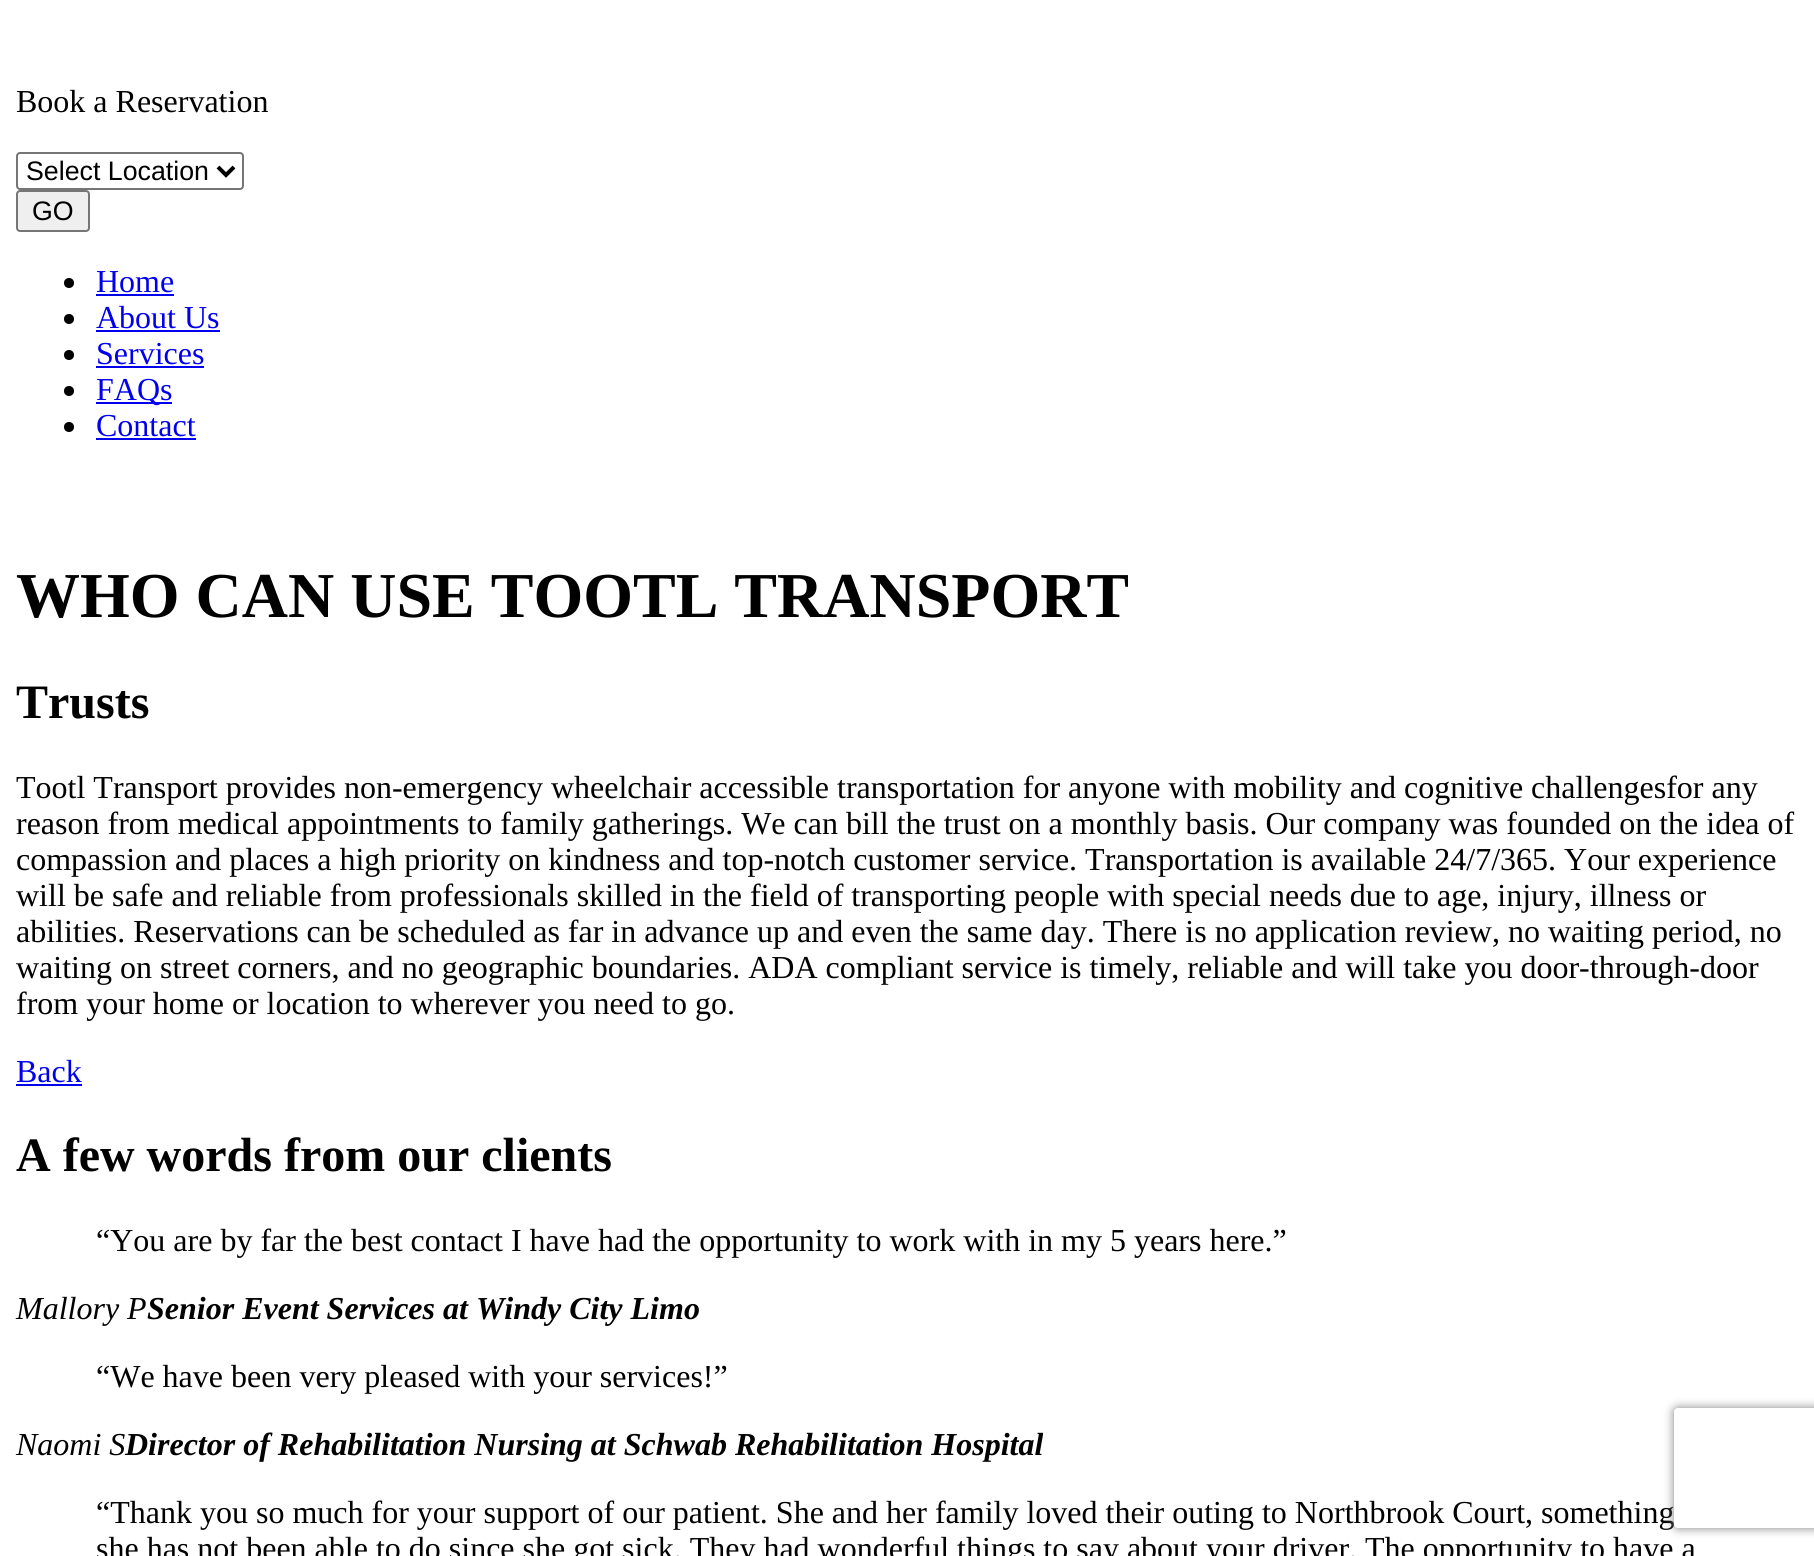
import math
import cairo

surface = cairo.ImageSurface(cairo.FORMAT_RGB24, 1814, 1556)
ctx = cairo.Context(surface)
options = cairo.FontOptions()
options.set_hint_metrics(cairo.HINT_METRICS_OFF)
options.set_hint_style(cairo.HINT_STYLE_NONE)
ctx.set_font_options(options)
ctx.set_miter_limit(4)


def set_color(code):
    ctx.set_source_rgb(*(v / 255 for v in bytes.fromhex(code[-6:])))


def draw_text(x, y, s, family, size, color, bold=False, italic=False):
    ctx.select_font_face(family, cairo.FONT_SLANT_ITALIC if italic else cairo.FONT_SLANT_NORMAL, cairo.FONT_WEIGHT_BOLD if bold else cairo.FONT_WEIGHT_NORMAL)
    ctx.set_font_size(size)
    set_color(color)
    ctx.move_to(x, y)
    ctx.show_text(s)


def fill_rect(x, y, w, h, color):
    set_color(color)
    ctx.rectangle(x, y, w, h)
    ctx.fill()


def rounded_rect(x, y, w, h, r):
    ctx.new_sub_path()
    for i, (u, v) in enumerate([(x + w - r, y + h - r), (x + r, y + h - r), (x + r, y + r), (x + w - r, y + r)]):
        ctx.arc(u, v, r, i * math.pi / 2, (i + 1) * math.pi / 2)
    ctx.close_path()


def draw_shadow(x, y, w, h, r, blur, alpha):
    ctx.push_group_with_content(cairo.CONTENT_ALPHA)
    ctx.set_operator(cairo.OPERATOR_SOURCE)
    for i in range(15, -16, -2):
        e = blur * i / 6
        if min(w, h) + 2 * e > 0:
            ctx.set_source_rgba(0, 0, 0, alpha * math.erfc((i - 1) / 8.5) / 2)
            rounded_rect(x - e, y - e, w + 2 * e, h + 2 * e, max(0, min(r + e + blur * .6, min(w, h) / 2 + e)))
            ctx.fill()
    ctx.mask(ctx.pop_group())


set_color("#ffffff")
ctx.paint()
draw_text(16, 112, "Book a Reservation", "Liberation Serif", 32, "#000000")
rounded_rect(17, 153, 226, 36, 3)
set_color("#767676")
ctx.stroke()
ctx.new_path()
ctx.move_to(218, 167)
ctx.line_to(226, 175)
ctx.line_to(234, 167)
set_color("#000000")
ctx.set_line_width(4)
ctx.stroke()
draw_text(26, 180, "Select Location", "Liberation Sans", 26.75, "#000000")
set_color("#efefef")
rounded_rect(17, 191, 72, 40, 3)
ctx.fill_preserve()
set_color("#767676")
ctx.set_line_width(2)
ctx.stroke()
draw_text(32, 220, "GO", "Liberation Sans", 26.75, "#000000")
ctx.new_path()
ctx.arc(69, 283, 5, 0, 2 * math.pi)
ctx.fill()
draw_text(96, 292, "Home", "Liberation Serif", 32, "#0000ee")
fill_rect(96, 294, 78, 2, "#0000ee")
set_color("#000000")
ctx.new_path()
ctx.arc(69, 319, 5, 0, 2 * math.pi)
ctx.fill()
draw_text(96, 328, "About Us", "Liberation Serif", 32, "#0000ee")
fill_rect(96, 330, 124, 2, "#0000ee")
set_color("#000000")
ctx.new_path()
ctx.arc(69, 355, 5, 0, 2 * math.pi)
ctx.fill()
draw_text(96, 364, "Services", "Liberation Serif", 32, "#0000ee")
fill_rect(96, 366, 108, 2, "#0000ee")
set_color("#000000")
ctx.new_path()
ctx.arc(69, 391, 5, 0, 2 * math.pi)
ctx.fill()
fill_rect(96, 402, 76, 2, "#0000ee")
draw_text(96, 400, "FAQs", "Liberation Serif", 32, "#0000ee")
set_color("#000000")
ctx.new_path()
ctx.arc(69, 427, 5, 0, 2 * math.pi)
ctx.fill()
draw_text(96, 436, "Contact", "Liberation Serif", 32, "#0000ee")
fill_rect(96, 438, 100, 2, "#0000ee")
draw_text(16, 617, "WHO CAN USE TOOTL TRANSPORT", "Liberation Serif", 64, "#000000", bold=True)
draw_text(16, 718, "Trusts", "Liberation Serif", 48, "#000000", bold=True)
draw_text(16, 798, "Tootl Transport provides non-emergency wheelchair accessible transportation for anyone with mobility and cognitive challengesfor any", "Liberation Serif", 32, "#000000")
draw_text(16, 834, "reason from medical appointments to family gatherings. We can bill the trust on a monthly basis. Our company was founded on the idea of", "Liberation Serif", 32, "#000000")
draw_text(16, 870, "compassion and places a high priority on kindness and top-notch customer service. Transportation is available 24/7/365. Your experience", "Liberation Serif", 32, "#000000")
draw_text(16, 906, "will be safe and reliable from professionals skilled in the field of transporting people with special needs due to age, injury, illness or", "Liberation Serif", 32, "#000000")
draw_text(16, 942, "abilities. Reservations can be scheduled as far in advance up and even the same day. There is no application review, no waiting period, no", "Liberation Serif", 32, "#000000")
draw_text(16, 978, "waiting on street corners, and no geographic boundaries. ADA compliant service is timely, reliable and will take you door-through-door", "Liberation Serif", 32, "#000000")
draw_text(16, 1014, "from your home or location to wherever you need to go.", "Liberation Serif", 32, "#000000")
draw_text(16, 1082, "Back", "Liberation Serif", 32, "#0000ee")
fill_rect(16, 1084, 66, 2, "#0000ee")
draw_text(16, 1171, "A few words from our clients", "Liberation Serif", 48, "#000000", bold=True)
draw_text(96, 1251, "“You are by far the best contact I have had the opportunity to work with in my 5 years here.”", "Liberation Serif", 32, "#000000")
draw_text(16, 1319, "Mallory P", "Liberation Serif", 32, "#000000", italic=True)
draw_text(147, 1319, "Senior Event Services at Windy City Limo", "Liberation Serif", 32, "#000000", bold=True, italic=True)
draw_text(96, 1387, "“We have been very pleased with your services!”", "Liberation Serif", 32, "#000000")
draw_text(16, 1455, "Naomi S", "Liberation Serif", 32, "#000000", italic=True)
draw_text(125, 1455, "Director of Rehabilitation Nursing at Schwab Rehabilitation Hospital", "Liberation Serif", 32, "#000000", bold=True, italic=True)
draw_text(96, 1523, "“Thank you so much for your support of our patient. She and her family loved their outing to Northbrook Court, something", "Liberation Serif", 32, "#000000")
draw_text(96, 1559, "she has not been able to do since she got sick. They had wonderful things to say about your driver. The opportunity to have a", "Liberation Serif", 32, "#000000")
ctx.save()
ctx.set_fill_rule(cairo.FILL_RULE_EVEN_ODD)
ctx.new_path()
ctx.move_to(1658, 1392)
ctx.line_to(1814, 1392)
ctx.line_to(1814, 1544)
ctx.line_to(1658, 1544)
ctx.close_path()
ctx.move_to(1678, 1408)
ctx.line_to(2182, 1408)
ctx.curve_to(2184, 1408, 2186, 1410, 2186, 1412)
ctx.line_to(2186, 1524)
ctx.curve_to(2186, 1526, 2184, 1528, 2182, 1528)
ctx.line_to(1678, 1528)
ctx.curve_to(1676, 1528, 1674, 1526, 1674, 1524)
ctx.line_to(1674, 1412)
ctx.curve_to(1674, 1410, 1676, 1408, 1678, 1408)
ctx.close_path()
ctx.clip()
set_color("#808080")
draw_shadow(1674, 1408, 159, 120, 4, 5, 1)
ctx.restore()
surface.write_to_png("output.png")
